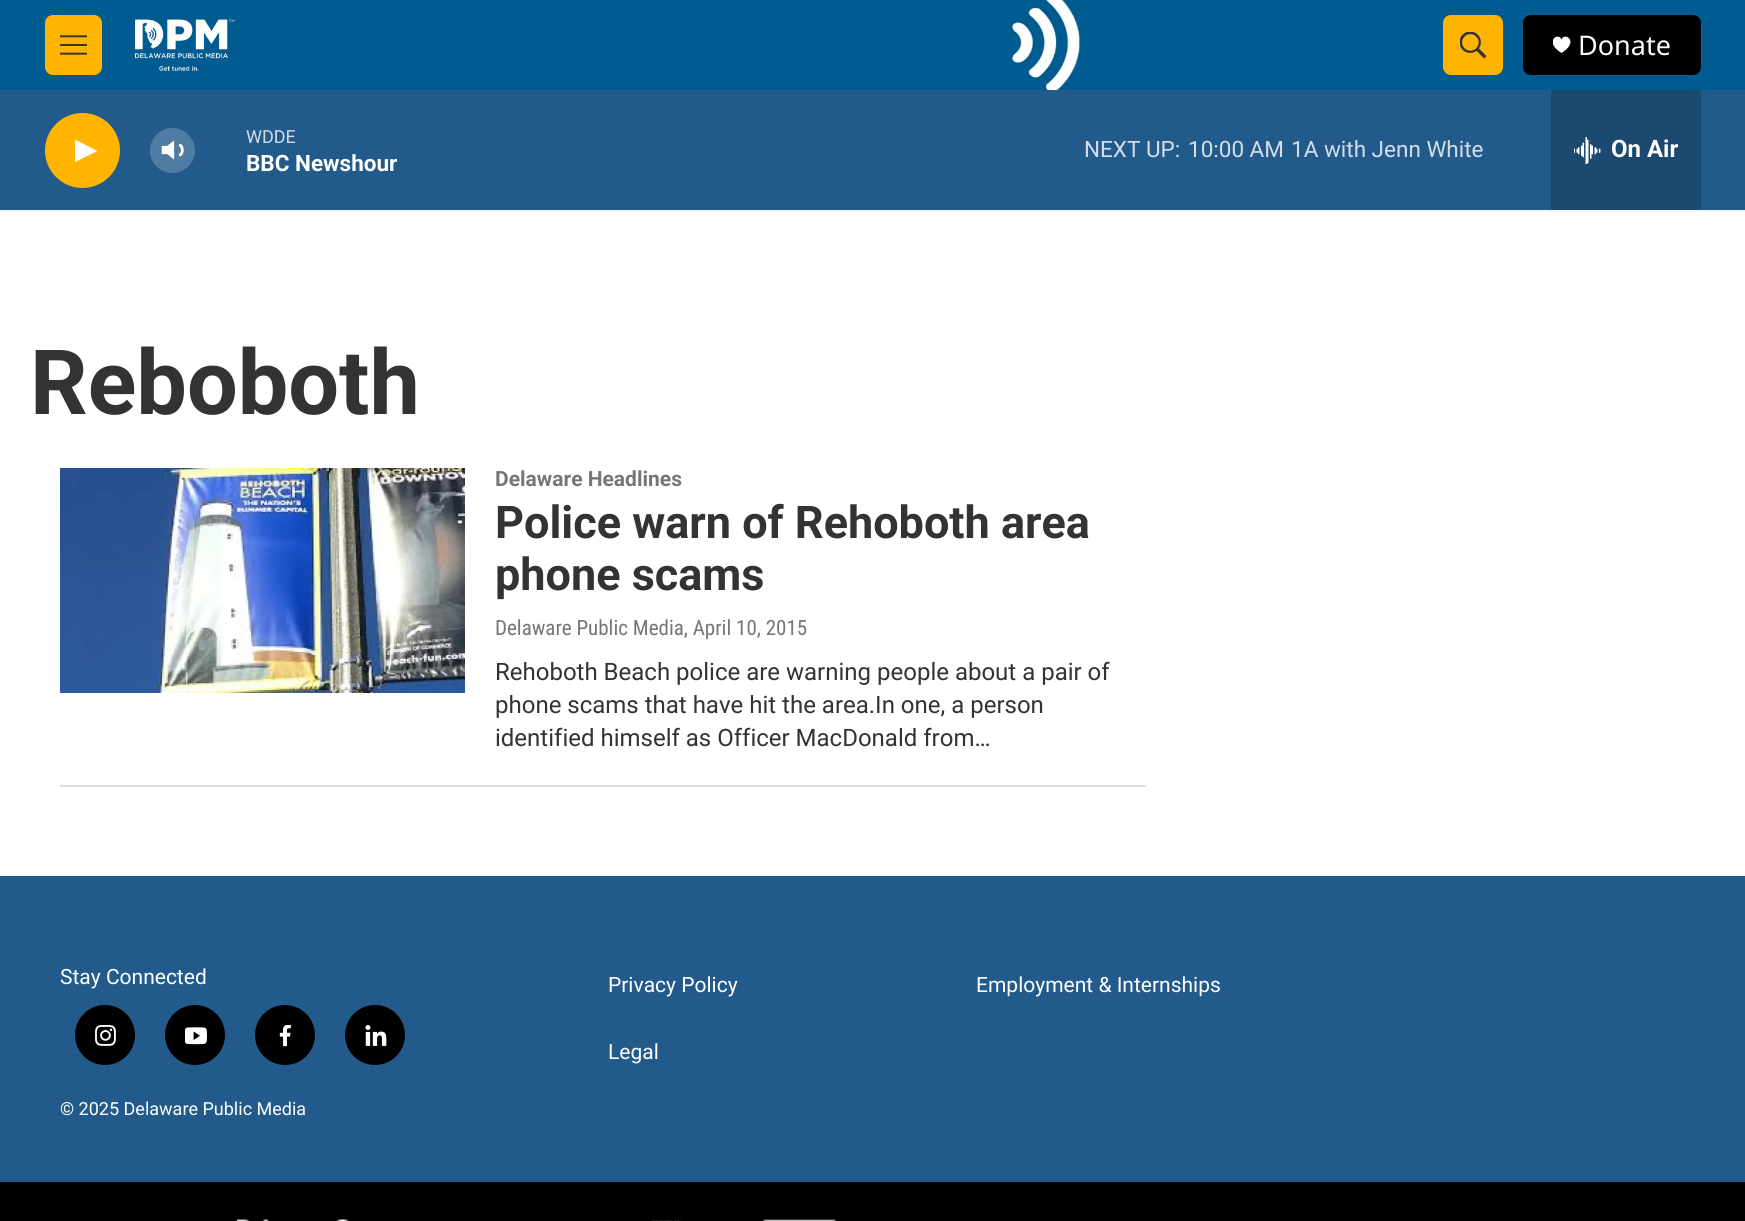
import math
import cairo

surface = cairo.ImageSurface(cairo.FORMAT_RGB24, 1745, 1221)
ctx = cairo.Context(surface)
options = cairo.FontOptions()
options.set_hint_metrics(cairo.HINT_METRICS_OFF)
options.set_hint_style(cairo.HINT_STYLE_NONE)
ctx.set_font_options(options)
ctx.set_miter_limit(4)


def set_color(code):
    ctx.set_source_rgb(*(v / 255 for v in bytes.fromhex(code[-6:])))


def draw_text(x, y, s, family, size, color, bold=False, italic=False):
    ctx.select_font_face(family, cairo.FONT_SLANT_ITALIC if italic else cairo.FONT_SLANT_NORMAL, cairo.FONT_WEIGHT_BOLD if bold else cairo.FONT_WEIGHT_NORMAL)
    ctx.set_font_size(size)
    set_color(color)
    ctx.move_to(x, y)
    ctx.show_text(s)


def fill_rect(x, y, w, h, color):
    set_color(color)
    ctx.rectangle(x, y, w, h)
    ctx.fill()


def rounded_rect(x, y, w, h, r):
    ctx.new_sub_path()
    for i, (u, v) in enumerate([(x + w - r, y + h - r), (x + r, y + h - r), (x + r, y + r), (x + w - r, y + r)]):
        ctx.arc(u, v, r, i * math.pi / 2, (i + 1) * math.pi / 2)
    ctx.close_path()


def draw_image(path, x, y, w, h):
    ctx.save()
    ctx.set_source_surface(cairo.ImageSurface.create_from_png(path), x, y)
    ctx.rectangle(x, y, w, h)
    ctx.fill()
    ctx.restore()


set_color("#ffffff")
ctx.paint()
fill_rect(0, 210, 1745, 2, "#f5f5f5")
draw_image("assets/img1.png", 0, 0, 1745, 90)
set_color("#ffb500")
rounded_rect(45, 15, 57, 60, 8)
ctx.fill()
draw_image("assets/img2.png", 60, 35, 27, 20)
draw_image("assets/img3.png", 135, 19, 100, 52)
rounded_rect(1443, 15, 60, 60, 8)
ctx.fill()
draw_image("assets/img4.png", 1460, 32, 27, 27)
set_color("#000000")
rounded_rect(1523, 15, 178, 60, 8)
ctx.fill()
ctx.save()
ctx.rectangle(1553, 36, 18, 18)
ctx.clip()
set_color("#ffffff")
ctx.new_path()
ctx.move_to(1561.5, 39.5)
ctx.curve_to(1558.5, 31.5, 1543, 41.5, 1561.5, 53)
ctx.curve_to(1580, 41.5, 1564.5, 31.5, 1561.5, 39.5)
ctx.close_path()
ctx.fill()
ctx.restore()
draw_text(1578, 55, "Donate", "Noto Sans", 27, "#ffffff")
fill_rect(0, 90, 1745, 120, "#225b8b")
set_color("#ffb500")
ctx.new_path()
ctx.arc(82.5, 150.5, 37.5, 0, 2 * math.pi)
ctx.fill()
set_color("#ffffff")
ctx.new_path()
ctx.move_to(75, 139.5)
ctx.line_to(97.5, 151)
ctx.line_to(75, 162)
ctx.close_path()
ctx.fill()
draw_image("assets/img5.png", 161, 140, 23, 20)
ctx.set_source_rgba(1, 1, 1, 0.2)
ctx.arc(172.5, 150.5, 22.5, 0, 2 * math.pi)
ctx.fill()
draw_text(246, 143, "WDDE", "Roboto", 18, "#d3dee8")
draw_text(246, 171, "BBC Newshour", "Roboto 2", 22.5, "#ffffff", bold=True)
draw_text(1084, 157, "NEXT UP:", "Roboto", 22.5, "#d3dee8")
draw_text(1188, 157, "10:00 AM", "Roboto", 22.5, "#d3dee8")
draw_text(1291, 157, "1A with Jenn White", "Roboto", 22.5, "#d3dee8")
fill_rect(1551, 90, 150, 120, "#1b496f")
draw_image("assets/img6.png", 1574, 137, 27, 27)
draw_text(1611, 157, "On Air", "Roboto 2", 24, "#ffffff", bold=True)
draw_text(30, 414, "Reboboth", "Roboto", 90, "#333333", bold=True)
fill_rect(60, 785, 1086, 2, "#dcdcdc")
draw_image("assets/img7.png", 60, 468, 405, 225)
draw_text(495, 486, "Delaware Headlines", "Roboto", 21, "#767676", bold=True)
draw_text(495, 538, "Police warn of Rehoboth area", "Roboto", 45, "#333333", bold=True)
draw_text(495, 590, "phone scams", "Roboto", 45, "#333333", bold=True)
draw_text(495, 635, "Delaware Public Media, April 10, 2015", "Roboto Condensed", 21, "#767676")
draw_text(495, 680, "Rehoboth Beach police are warning people about a pair of", "Roboto", 24, "#333333")
draw_text(495, 713, "phone scams that have hit the area.In one, a person", "Roboto", 24, "#333333")
draw_text(495, 746, "identified himself as Officer MacDonald from…", "Roboto", 24, "#333333")
fill_rect(0, 876, 1745, 306, "#225b8b")
draw_text(60, 984, "Stay Connected", "Roboto", 21, "#ffffff")
set_color("#000000")
ctx.new_path()
ctx.arc(105, 1035, 30, 0, 2 * math.pi)
ctx.fill()
draw_image("assets/img8.png", 95, 1025, 21, 21)
ctx.arc(195, 1035, 30, 0, 2 * math.pi)
ctx.fill()
draw_image("assets/img9.png", 185, 1027, 22, 18)
ctx.arc(285, 1035, 30, 0, 2 * math.pi)
ctx.fill()
draw_image("assets/img10.png", 279, 1025, 12, 22)
ctx.arc(375, 1035, 30, 0, 2 * math.pi)
ctx.fill()
draw_image("assets/img11.png", 365, 1025, 22, 21)
draw_text(60, 1115, "© 2025 Delaware Public Media", "Roboto", 18, "#ffffff")
draw_text(608, 992, "Privacy Policy", "Roboto", 21, "#ffffff")
draw_text(976, 992, "Employment & Internships", "Roboto", 21, "#ffffff")
draw_text(608, 1059, "Legal", "Roboto", 21, "#ffffff")
fill_rect(0, 1182, 1745, 39, "#000000")
draw_image("assets/img12.png", 237, 1219, 112, 2)
draw_image("assets/img13.png", 650, 1220, 31, 1)
draw_image("assets/img14.png", 763, 1219, 73, 2)
surface.write_to_png("output.png")
